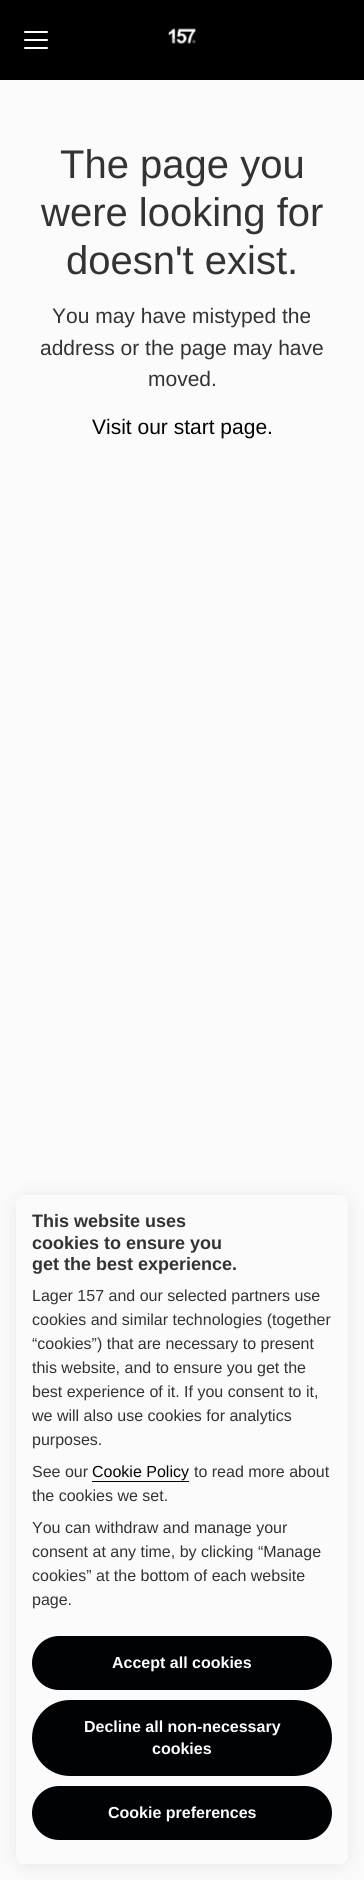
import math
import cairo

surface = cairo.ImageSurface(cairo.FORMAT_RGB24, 364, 1880)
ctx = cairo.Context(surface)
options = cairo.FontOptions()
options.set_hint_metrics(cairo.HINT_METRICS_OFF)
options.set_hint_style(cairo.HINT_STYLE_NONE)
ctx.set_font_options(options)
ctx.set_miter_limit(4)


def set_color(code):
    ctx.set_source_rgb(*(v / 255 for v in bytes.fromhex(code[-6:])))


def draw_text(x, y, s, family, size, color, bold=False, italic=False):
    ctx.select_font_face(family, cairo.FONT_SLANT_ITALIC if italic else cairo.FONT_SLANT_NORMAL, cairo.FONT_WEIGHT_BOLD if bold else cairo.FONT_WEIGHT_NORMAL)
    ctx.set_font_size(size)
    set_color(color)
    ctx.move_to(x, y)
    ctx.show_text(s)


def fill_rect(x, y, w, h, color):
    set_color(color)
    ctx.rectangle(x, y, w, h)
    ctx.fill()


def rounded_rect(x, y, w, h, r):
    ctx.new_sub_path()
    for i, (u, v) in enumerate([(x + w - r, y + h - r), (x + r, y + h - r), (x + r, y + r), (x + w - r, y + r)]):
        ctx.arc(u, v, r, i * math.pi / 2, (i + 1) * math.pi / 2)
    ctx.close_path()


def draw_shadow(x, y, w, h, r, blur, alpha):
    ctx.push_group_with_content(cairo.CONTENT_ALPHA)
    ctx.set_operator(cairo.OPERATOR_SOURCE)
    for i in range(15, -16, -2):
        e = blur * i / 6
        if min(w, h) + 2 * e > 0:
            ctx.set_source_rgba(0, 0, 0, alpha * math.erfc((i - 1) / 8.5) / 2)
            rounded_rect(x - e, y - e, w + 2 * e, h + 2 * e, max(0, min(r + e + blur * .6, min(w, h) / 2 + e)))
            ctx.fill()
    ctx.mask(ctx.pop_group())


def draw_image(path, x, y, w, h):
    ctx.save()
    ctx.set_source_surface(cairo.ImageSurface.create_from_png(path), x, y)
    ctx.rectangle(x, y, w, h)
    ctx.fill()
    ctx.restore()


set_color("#fbfbfb")
ctx.paint()
fill_rect(0, 0, 364, 80, "#000000")
set_color("#ffffff")
rounded_rect(24, 31, 24, 2, 1)
ctx.fill()
rounded_rect(24, 39, 24, 2, 1)
ctx.fill()
rounded_rect(24, 47, 24, 2, 1)
ctx.fill()
draw_image("assets/img1.png", 168, 28, 28, 16)
draw_text(60, 178, "The page you", "Liberation Sans", 40, "#333333")
draw_text(41, 226, "were looking for", "Liberation Sans", 40, "#333333")
draw_text(66, 274, "doesn't exist.", "Liberation Sans", 40, "#333333")
draw_text(52, 323, "You may have mistyped the", "Liberation Sans", 21, "#333333")
draw_text(40, 355, "address or the page may have", "Liberation Sans", 21, "#333333")
draw_text(148, 386, "moved.", "Liberation Sans", 21, "#333333")
draw_text(92, 434, "Visit our start page.", "Liberation Sans", 21, "#000306")
set_color("#000000")
draw_shadow(26, 1207, 312, 649, 0, 13.5, 0.18)
set_color("#fbfbfb")
rounded_rect(16, 1195, 332, 669, 8)
ctx.fill()
draw_text(32, 1227, "This website uses", "Liberation Sans", 18, "#333333", bold=True)
draw_text(32, 1249, "cookies to ensure you", "Liberation Sans", 18, "#333333", bold=True)
draw_text(32, 1270, "get the best experience.", "Liberation Sans", 18, "#333333", bold=True)
draw_text(32, 1301, "Lager 157 and our selected partners use", "Liberation Sans", 16, "#333333")
draw_text(32, 1325, "cookies and similar technologies (together", "Liberation Sans", 16, "#333333")
draw_text(32, 1349, "“cookies”) that are necessary to present", "Liberation Sans", 16, "#333333")
draw_text(32, 1373, "this website, and to ensure you get the", "Liberation Sans", 16, "#333333")
draw_text(32, 1397, "best experience of it. If you consent to it,", "Liberation Sans", 16, "#333333")
draw_text(32, 1421, "we will also use cookies for analytics", "Liberation Sans", 16, "#333333")
draw_text(32, 1445, "purposes.", "Liberation Sans", 16, "#333333")
draw_text(32, 1477, "See our", "Liberation Sans", 16, "#333333")
draw_text(92, 1477, "Cookie Policy", "Liberation Sans", 16, "#000306")
fill_rect(92, 1481, 97, 1, "#000306")
draw_text(194, 1477, "to read more about", "Liberation Sans", 16, "#333333")
draw_text(32, 1501, "the cookies we set.", "Liberation Sans", 16, "#333333")
draw_text(32, 1533, "You can withdraw and manage your", "Liberation Sans", 16, "#333333")
draw_text(32, 1557, "consent at any time, by clicking “Manage", "Liberation Sans", 16, "#333333")
draw_text(32, 1581, "cookies” at the bottom of each website", "Liberation Sans", 16, "#333333")
draw_text(32, 1605, "page.", "Liberation Sans", 16, "#333333")
set_color("#000306")
rounded_rect(32, 1636, 300, 54, 27)
ctx.fill()
draw_text(112, 1668, "Accept all cookies", "Liberation Sans", 16, "#ffffff", bold=True)
set_color("#000306")
rounded_rect(32, 1700, 300, 76, 38)
ctx.fill()
draw_text(84, 1732, "Decline all non-necessary", "Liberation Sans", 16, "#ffffff", bold=True)
draw_text(152, 1754, "cookies", "Liberation Sans", 16, "#ffffff", bold=True)
set_color("#000306")
rounded_rect(32, 1786, 300, 54, 27)
ctx.fill()
draw_text(108, 1818, "Cookie preferences", "Liberation Sans", 16, "#ffffff", bold=True)
surface.write_to_png("output.png")
